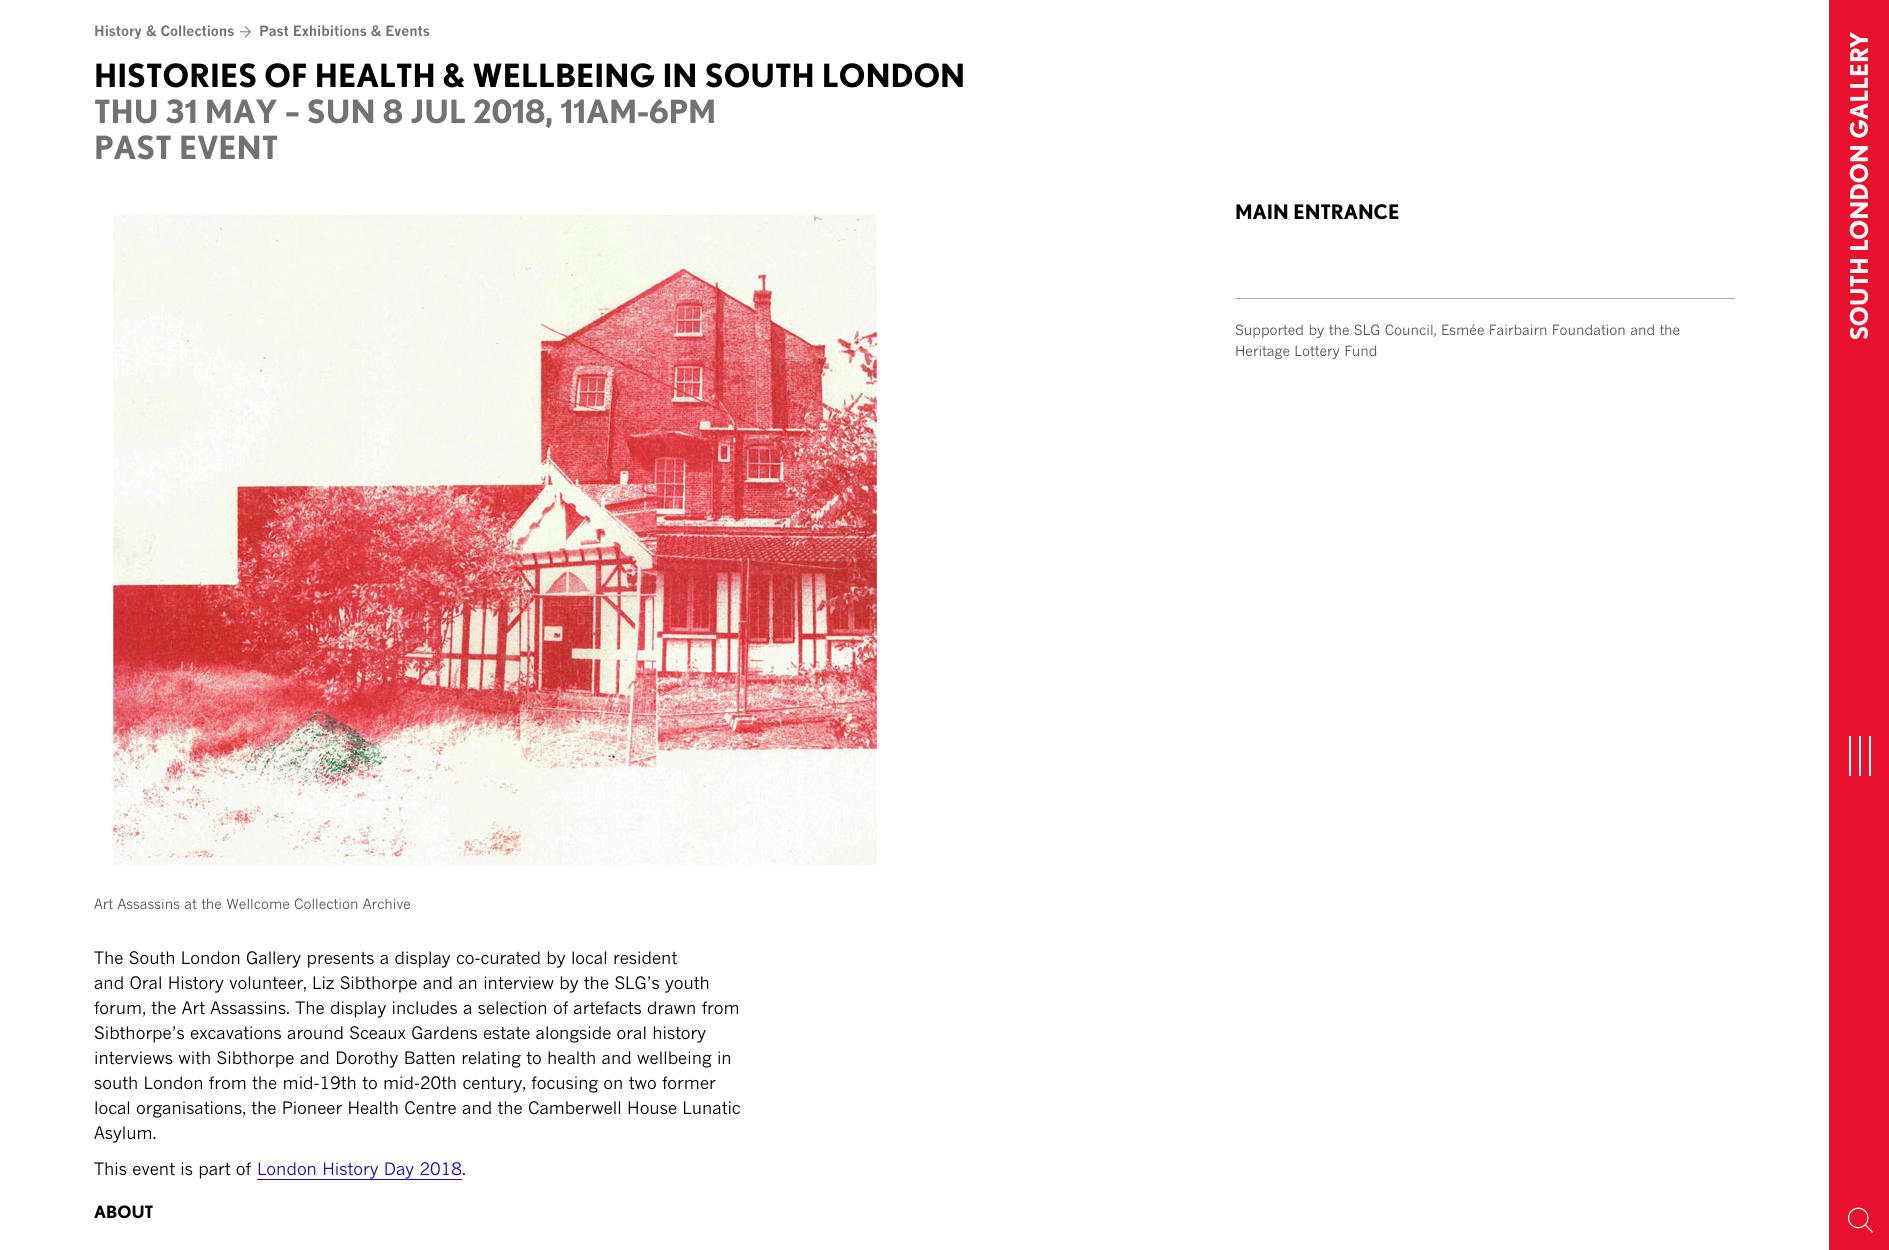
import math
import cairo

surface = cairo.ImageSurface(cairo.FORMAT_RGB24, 1889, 1250)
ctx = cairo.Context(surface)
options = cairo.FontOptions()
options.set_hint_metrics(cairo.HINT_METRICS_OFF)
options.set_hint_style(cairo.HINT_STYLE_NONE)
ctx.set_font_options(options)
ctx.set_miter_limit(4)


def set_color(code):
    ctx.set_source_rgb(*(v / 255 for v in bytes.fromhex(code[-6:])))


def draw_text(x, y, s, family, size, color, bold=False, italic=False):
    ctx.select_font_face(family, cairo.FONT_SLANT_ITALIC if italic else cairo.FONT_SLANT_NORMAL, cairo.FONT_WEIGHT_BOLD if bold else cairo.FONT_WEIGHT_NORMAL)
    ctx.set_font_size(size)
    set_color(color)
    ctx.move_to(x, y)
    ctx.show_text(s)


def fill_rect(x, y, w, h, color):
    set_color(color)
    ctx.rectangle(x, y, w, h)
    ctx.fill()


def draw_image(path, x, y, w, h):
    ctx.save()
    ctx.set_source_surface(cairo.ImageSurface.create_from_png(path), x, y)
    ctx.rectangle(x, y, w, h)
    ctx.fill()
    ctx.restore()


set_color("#ffffff")
ctx.paint()
fill_rect(1829, 0, 60, 1250, "#e8112d")
draw_text(94, 36, "History & Collections", "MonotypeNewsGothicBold", 14, "#727272", bold=True)
draw_image("assets/img1.png", 240, 25, 11, 13)
draw_text(259, 36, "Past Exhibitions & Events", "MonotypeNewsGothicBold", 14, "#727272", bold=True)
draw_text(94, 87, "HISTORIES OF HEALTH & WELLBEING IN SOUTH LONDON", "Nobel", 32, "#000000", bold=True)
draw_text(94, 123, "THU 31 MAY – SUN 8 JUL 2018, 11AM-6PM", "Nobel", 32, "#727272", bold=True)
draw_text(94, 159, "PAST EVENT", "Nobel", 32, "#727272", bold=True)
draw_text(1235, 219, "MAIN ENTRANCE", "Nobel", 20, "#000000", bold=True)
fill_rect(1235, 298, 500, 1, "#aaaaaa")
draw_text(1235, 335, "Supported by the SLG Council, Esmée Fairbairn Foundation and the", "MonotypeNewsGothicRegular", 14, "#545454")
draw_text(1235, 356, "Heritage Lottery Fund", "MonotypeNewsGothicRegular", 14, "#545454")
draw_image("assets/img2.png", 110, 209, 768, 656)
draw_text(94, 909, "Art Assassins at the Wellcome Collection Archive", "MonotypeNewsGothicRegular", 14, "#545454")
draw_text(94, 964, "The South London Gallery presents a display co-curated by local resident", "MonotypeNewsGothicRegular", 17, "#000000")
draw_text(94, 989, "and Oral History volunteer, Liz Sibthorpe and an interview by the SLG’s youth", "MonotypeNewsGothicRegular", 17, "#000000")
draw_text(94, 1014, "forum, the Art Assassins. The display includes a selection of artefacts drawn from", "MonotypeNewsGothicRegular", 17, "#000000")
draw_text(94, 1039, "Sibthorpe’s excavations around Sceaux Gardens estate alongside oral history", "MonotypeNewsGothicRegular", 17, "#000000")
draw_text(94, 1064, "interviews with Sibthorpe and Dorothy Batten relating to health and wellbeing in", "MonotypeNewsGothicRegular", 17, "#000000")
draw_text(94, 1089, "south London from the mid-19th to mid-20th century, focusing on two former", "MonotypeNewsGothicRegular", 17, "#000000")
draw_text(94, 1114, "local organisations, the Pioneer Health Centre and the Camberwell House Lunatic", "MonotypeNewsGothicRegular", 17, "#000000")
draw_text(94, 1139, "Asylum.", "MonotypeNewsGothicRegular", 17, "#000000")
draw_text(94, 1175, "This event is part of", "MonotypeNewsGothicRegular", 17, "#000000")
draw_text(257, 1175, "London History Day 2018", "MonotypeNewsGothicRegular", 17, "#1a0dab")
fill_rect(257, 1179, 205, 1, "#1a0dab")
draw_text(462, 1175, ".", "MonotypeNewsGothicRegular", 17, "#000000")
draw_text(94, 1218, "ABOUT", "Nobel", 17, "#000000", bold=True)
draw_image("assets/img3.png", 1849, 32, 20, 307)
fill_rect(1859, 736, 2, 40, "#ffffff")
fill_rect(1849, 736, 2, 40, "#ffffff")
fill_rect(1869, 736, 2, 40, "#ffffff")
draw_image("assets/img4.png", 1847, 1207, 26, 26)
surface.write_to_png("output.png")
